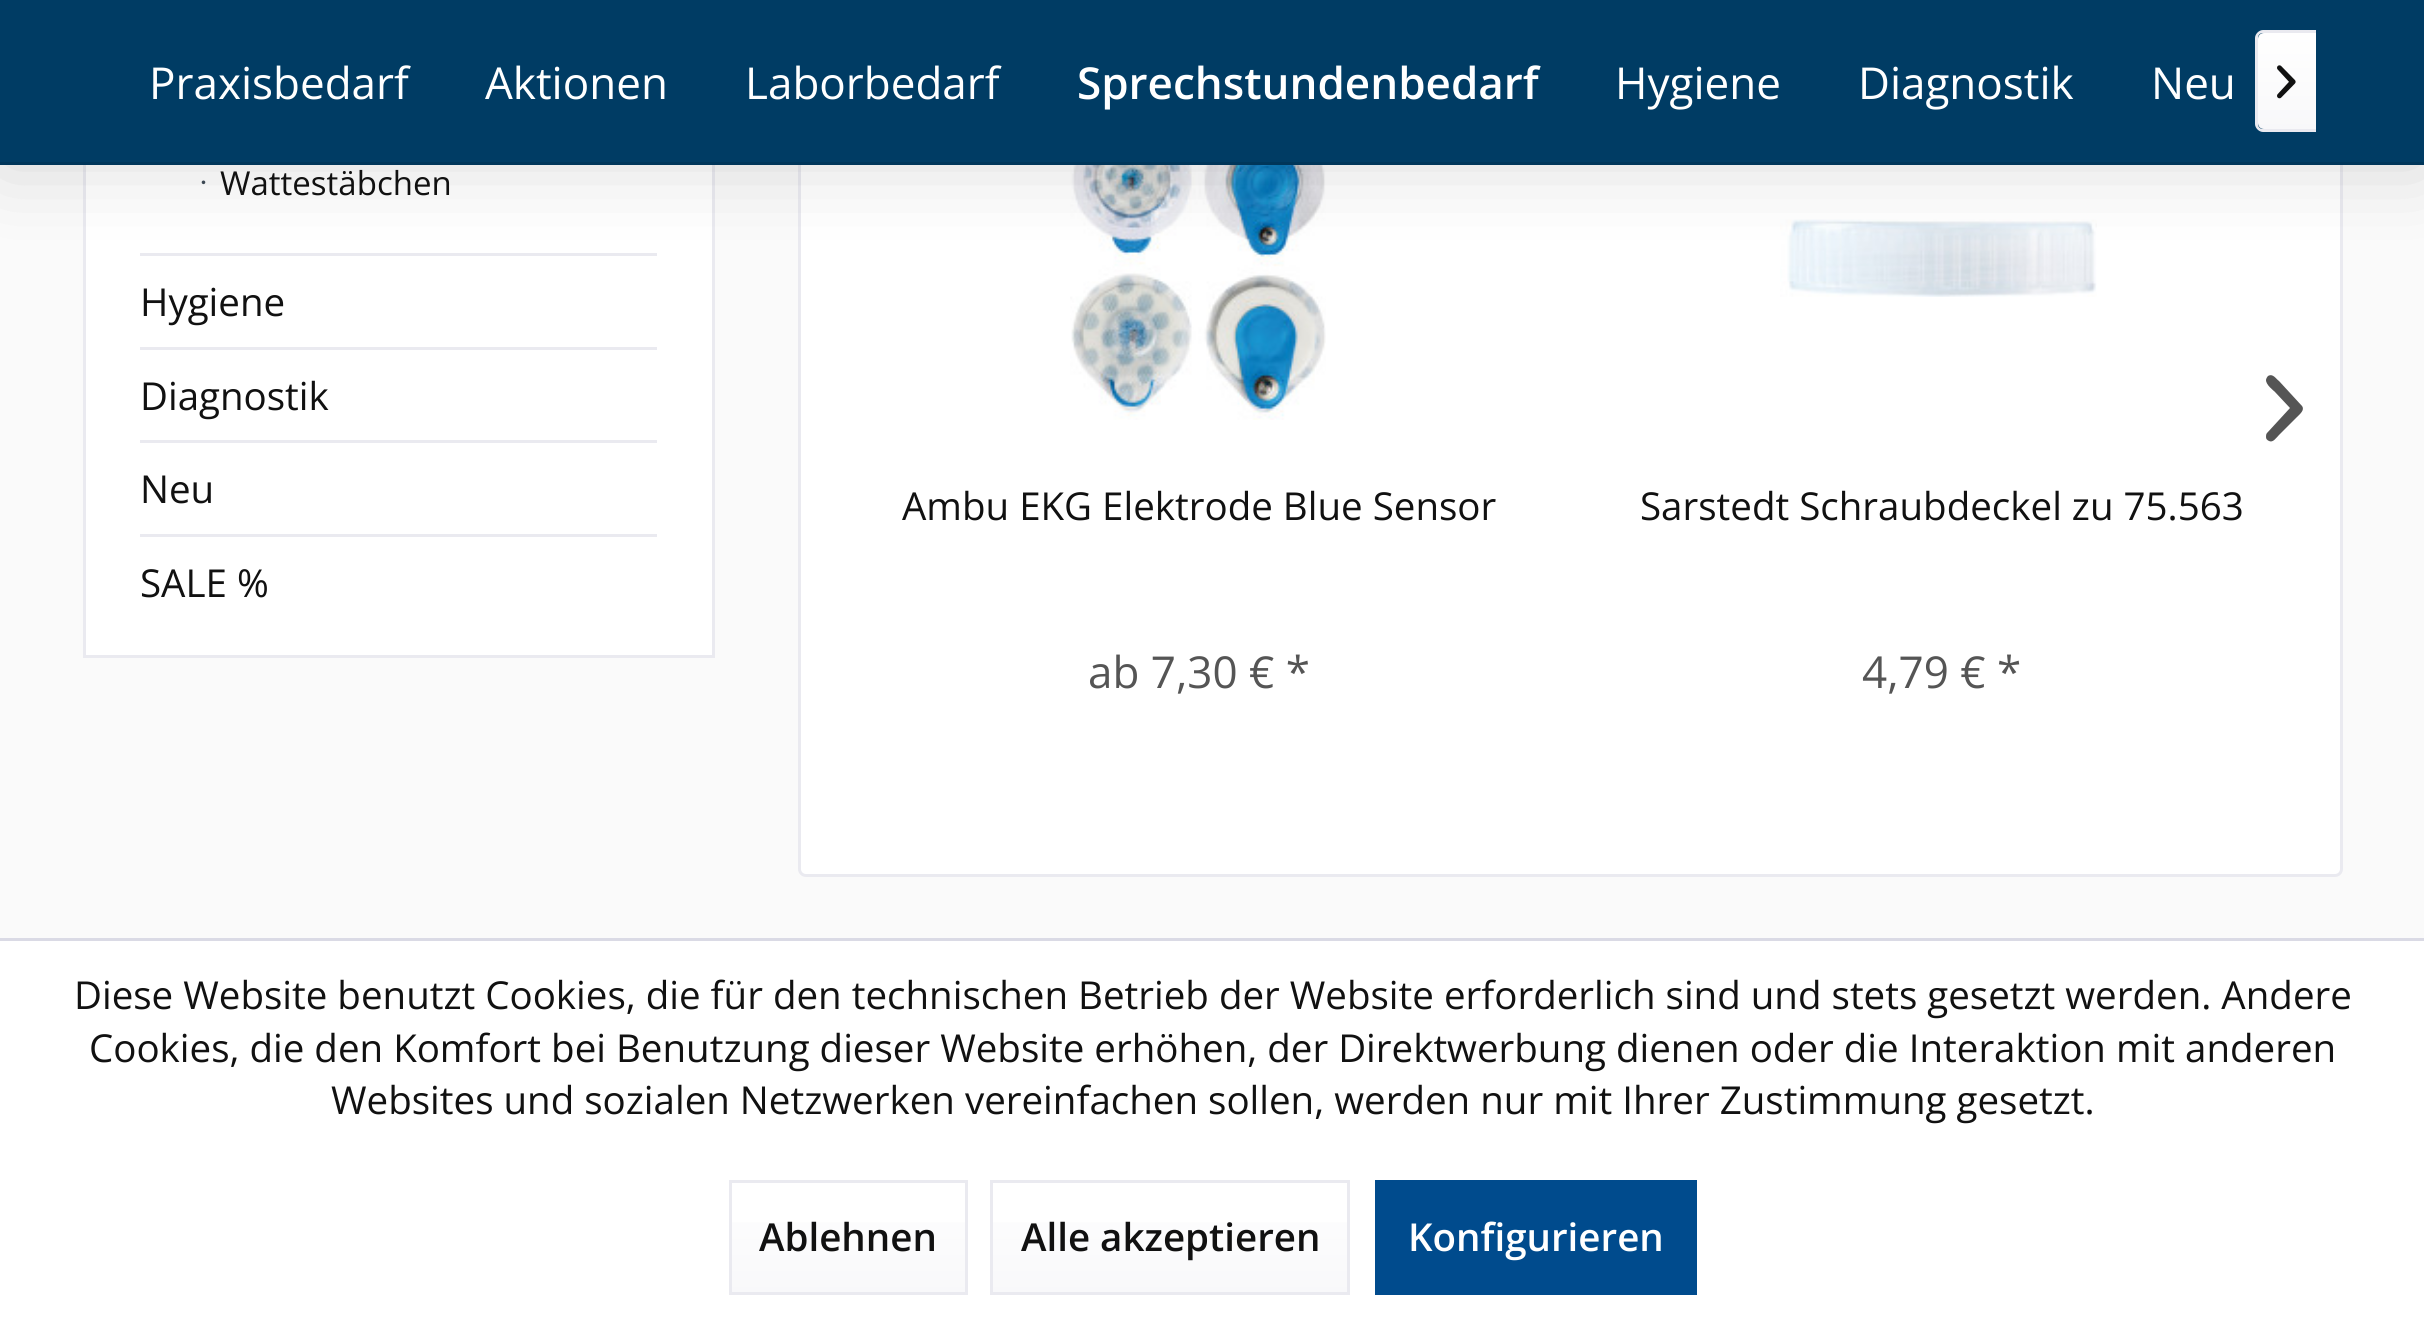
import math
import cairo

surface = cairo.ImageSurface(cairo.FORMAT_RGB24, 2424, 1321)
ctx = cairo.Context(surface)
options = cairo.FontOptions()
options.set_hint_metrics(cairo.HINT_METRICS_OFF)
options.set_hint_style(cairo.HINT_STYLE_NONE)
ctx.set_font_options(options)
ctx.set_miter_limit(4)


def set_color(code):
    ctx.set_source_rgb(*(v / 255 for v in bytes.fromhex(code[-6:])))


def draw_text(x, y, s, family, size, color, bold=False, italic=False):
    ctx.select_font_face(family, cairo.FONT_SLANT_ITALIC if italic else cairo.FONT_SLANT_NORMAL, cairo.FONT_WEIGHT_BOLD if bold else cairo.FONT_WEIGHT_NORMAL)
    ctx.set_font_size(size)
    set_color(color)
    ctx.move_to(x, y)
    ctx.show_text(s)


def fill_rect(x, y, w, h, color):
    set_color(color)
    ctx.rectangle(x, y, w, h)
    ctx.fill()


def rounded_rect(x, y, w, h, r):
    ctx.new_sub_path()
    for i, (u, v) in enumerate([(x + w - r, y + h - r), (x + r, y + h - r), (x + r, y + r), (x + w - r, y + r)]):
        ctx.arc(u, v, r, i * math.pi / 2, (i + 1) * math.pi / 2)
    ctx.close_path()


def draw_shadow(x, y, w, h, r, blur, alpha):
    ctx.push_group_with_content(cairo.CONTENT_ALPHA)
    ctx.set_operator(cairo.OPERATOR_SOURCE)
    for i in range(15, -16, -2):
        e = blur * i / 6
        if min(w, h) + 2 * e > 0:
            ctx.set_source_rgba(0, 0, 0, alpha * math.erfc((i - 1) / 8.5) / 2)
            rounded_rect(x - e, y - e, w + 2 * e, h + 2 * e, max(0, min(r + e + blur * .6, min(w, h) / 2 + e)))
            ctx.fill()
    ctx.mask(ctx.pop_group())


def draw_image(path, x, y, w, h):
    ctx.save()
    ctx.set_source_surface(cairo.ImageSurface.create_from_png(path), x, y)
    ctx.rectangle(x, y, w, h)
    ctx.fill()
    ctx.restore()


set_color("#fafafa")
ctx.paint()
fill_rect(86, 165, 626, 490, "#ffffff")
fill_rect(712, 165, 3, 492, "#eaeaf0")
fill_rect(83, 655, 632, 3, "#eaeaf0")
fill_rect(83, 165, 3, 492, "#eaeaf0")
fill_rect(140, 253, 517, 3, "#eaeaf0")
draw_image("assets/img2.png", 201, 180, 5, 5)
set_color("#ffffff")
rounded_rect(799.5, -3.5, 1542, 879, 6.5)
ctx.fill_preserve()
set_color("#eaeaf0")
ctx.set_line_width(3)
ctx.stroke()
draw_image("assets/img3.png", 1070, 165, 256, 255)
draw_image("assets/img4.png", 1780, 219, 317, 78)
set_color("#000000")
draw_shadow(0, 0, 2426, 165, 0, 41, 0.15)
fill_rect(0, 0, 2424, 162, "#003c64")
fill_rect(0, 162, 2424, 3, "#00365a")
draw_text(149, 99, "Praxisbedarf", "Open Sans", 44, "#ffffff")
draw_text(485, 99, "Aktionen", "Open Sans", 44, "#ffffff")
draw_text(745, 99, "Laborbedarf", "Open Sans", 44, "#ffffff")
draw_text(1077, 99, "Sprechstundenbedarf", "Open Sans SemiBold", 44, "#ffffff")
draw_text(1615, 99, "Hygiene", "Open Sans", 44, "#ffffff")
draw_text(1858, 99, "Diagnostik", "Open Sans", 44, "#ffffff")
draw_text(2151, 99, "Neu", "Open Sans", 44, "#ffffff")
gradient = cairo.LinearGradient(2287, 33, 2287, 129)
gradient.add_color_stop_rgba(0, 1, 1, 1, 1)
gradient.add_color_stop_rgba(1, 0.973, 0.973, 0.98, 1)
ctx.set_source(gradient)
ctx.new_path()
ctx.move_to(2264, 33)
ctx.line_to(2316, 33)
ctx.line_to(2316, 129)
ctx.line_to(2264, 129)
ctx.curve_to(2260.5, 129, 2258, 126.5, 2258, 123)
ctx.line_to(2258, 39)
ctx.curve_to(2258, 35.5, 2260.5, 33, 2264, 33)
ctx.close_path()
ctx.fill()
set_color("#eaeaf0")
ctx.set_fill_rule(cairo.FILL_RULE_EVEN_ODD)
ctx.new_path()
ctx.move_to(2263, 30)
ctx.line_to(2316, 30)
ctx.line_to(2316, 132)
ctx.line_to(2263, 132)
ctx.curve_to(2259, 132, 2255, 128, 2255, 124)
ctx.line_to(2255, 38)
ctx.curve_to(2255, 34, 2259, 30, 2263, 30)
ctx.close_path()
ctx.move_to(2263, 33)
ctx.line_to(2316, 33)
ctx.line_to(2316, 129)
ctx.line_to(2263, 129)
ctx.curve_to(2260, 129, 2258, 127, 2258, 124)
ctx.line_to(2258, 38)
ctx.curve_to(2258, 35, 2260, 33, 2263, 33)
ctx.close_path()
ctx.fill()
draw_image("assets/img1.png", 2277, 65, 19, 34)
draw_text(220, 195, "Wattestäbchen", "Open Sans", 33, "#111111")
fill_rect(140, 347, 517, 3, "#eaeaf0")
draw_text(140, 316, "Hygiene", "Open Sans", 38.5, "#111111")
fill_rect(140, 440, 517, 3, "#eaeaf0")
draw_text(140, 410, "Diagnostik", "Open Sans", 38.5, "#111111")
fill_rect(140, 534, 517, 3, "#eaeaf0")
draw_text(140, 503, "Neu", "Open Sans", 38.5, "#111111")
draw_text(140, 597, "SALE %", "Open Sans", 38.5, "#111111")
set_color("#555555")
ctx.set_fill_rule(cairo.FILL_RULE_WINDING)
ctx.new_path()
ctx.move_to(2267, 433)
ctx.curve_to(2266, 434, 2266, 436, 2266, 437)
ctx.curve_to(2266, 439, 2267, 440, 2269, 441)
ctx.curve_to(2273, 443, 2276, 438, 2279, 435)
ctx.line_to(2297, 417)
ctx.curve_to(2300, 414, 2305, 410, 2302, 406)
ctx.line_to(2279, 381)
ctx.curve_to(2276, 379, 2273, 373, 2268, 376)
ctx.curve_to(2267, 377, 2266, 379, 2266, 380)
ctx.curve_to(2266, 385, 2273, 390, 2275, 392)
ctx.line_to(2290, 408)
ctx.close_path()
ctx.fill()
draw_text(902, 520, "Ambu EKG Elektrode Blue Sensor", "Open Sans", 38.5, "#111111")
draw_text(1088, 688, "ab 7,30 € *", "Open Sans", 44, "#555555")
draw_text(1640, 520, "Sarstedt Schraubdeckel zu 75.563", "Open Sans", 38.5, "#111111")
draw_text(1862, 688, "4,79 € *", "Open Sans", 44, "#555555")
fill_rect(0, 941, 2424, 380, "#ffffff")
fill_rect(0, 938, 2424, 3, "#dadae5")
draw_text(74, 1009, "Diese Website benutzt Cookies, die für den technischen Betrieb der Website erforderlich sind und stets gesetzt werden. Andere", "Open Sans", 38.5, "#111111")
draw_text(89, 1062, "Cookies, die den Komfort bei Benutzung dieser Website erhöhen, der Direktwerbung dienen oder die Interaktion mit anderen", "Open Sans", 38.5, "#111111")
draw_text(331, 1114, "Websites und sozialen Netzwerken vereinfachen sollen, werden nur mit Ihrer Zustimmung gesetzt.", "Open Sans", 38.5, "#111111")
gradient = cairo.LinearGradient(848, 1183, 848, 1293)
gradient.add_color_stop_rgba(0, 1, 1, 1, 1)
gradient.add_color_stop_rgba(1, 0.973, 0.973, 0.98, 1)
ctx.set_source(gradient)
ctx.rectangle(732, 1222, 233, 70)
ctx.fill()
ctx.rectangle(730.5, 1181.5, 236, 112)
set_color("#eaeaf0")
ctx.stroke()
draw_text(759, 1251, "Ablehnen", "Open Sans SemiBold", 38.5, "#111111")
gradient = cairo.LinearGradient(1170, 1183, 1170, 1293)
gradient.add_color_stop_rgba(0, 1, 1, 1, 1)
gradient.add_color_stop_rgba(1, 0.973, 0.973, 0.98, 1)
ctx.set_source(gradient)
ctx.rectangle(993, 1222, 354, 70)
ctx.fill()
ctx.rectangle(991.5, 1181.5, 357, 112)
set_color("#eaeaf0")
ctx.stroke()
draw_text(1021, 1251, "Alle akzeptieren", "Open Sans SemiBold", 38.5, "#111111")
fill_rect(1375, 1180, 322, 115, "#004b8d")
draw_text(1408, 1251, "Konfigurieren", "Open Sans SemiBold", 38.5, "#ffffff")
surface.write_to_png("output.png")
